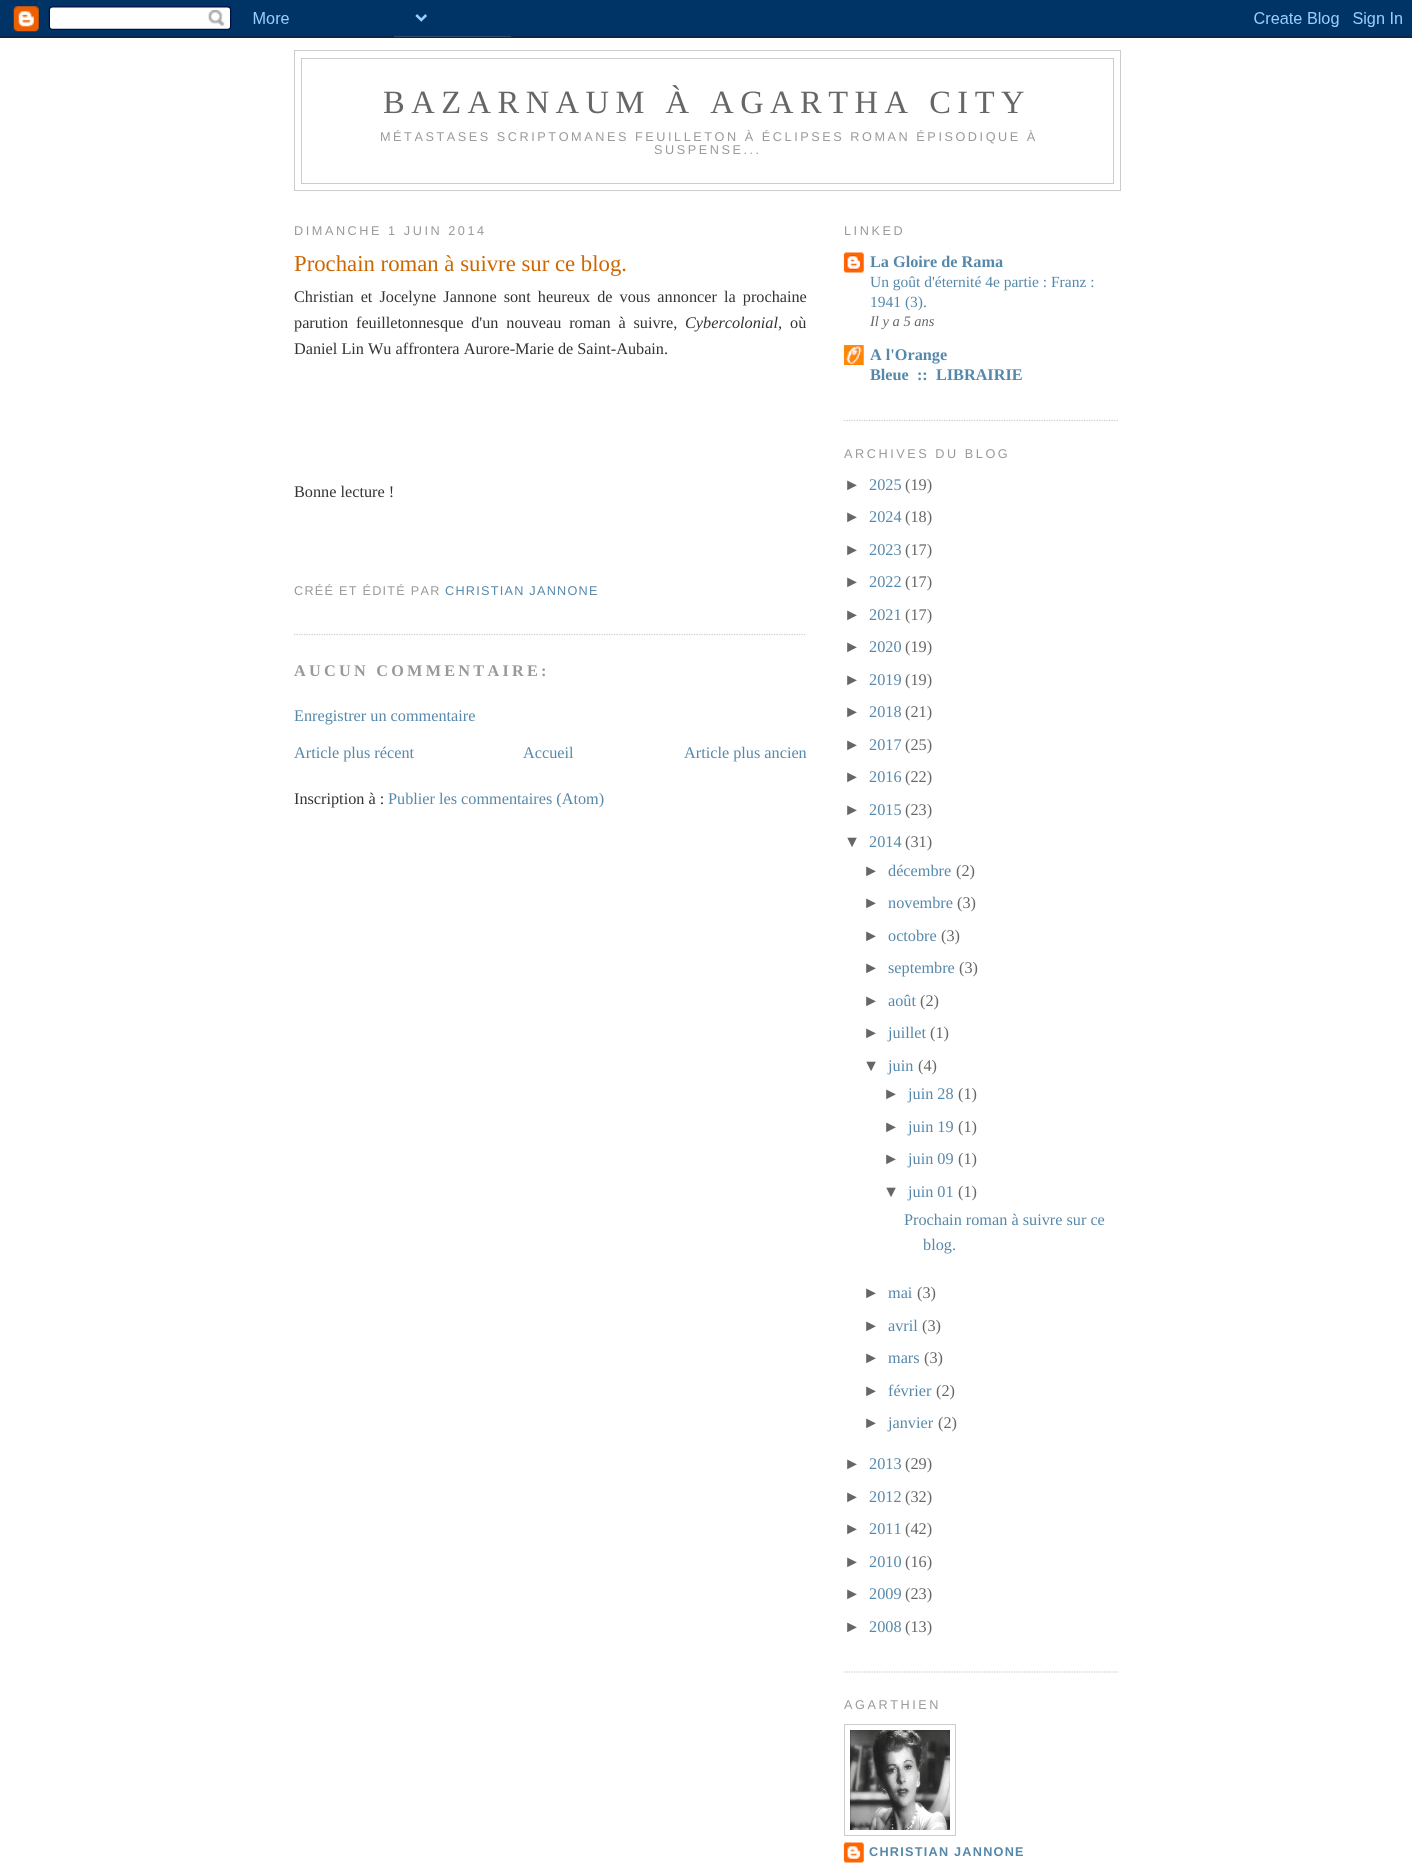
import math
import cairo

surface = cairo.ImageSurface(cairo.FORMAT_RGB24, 1412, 1863)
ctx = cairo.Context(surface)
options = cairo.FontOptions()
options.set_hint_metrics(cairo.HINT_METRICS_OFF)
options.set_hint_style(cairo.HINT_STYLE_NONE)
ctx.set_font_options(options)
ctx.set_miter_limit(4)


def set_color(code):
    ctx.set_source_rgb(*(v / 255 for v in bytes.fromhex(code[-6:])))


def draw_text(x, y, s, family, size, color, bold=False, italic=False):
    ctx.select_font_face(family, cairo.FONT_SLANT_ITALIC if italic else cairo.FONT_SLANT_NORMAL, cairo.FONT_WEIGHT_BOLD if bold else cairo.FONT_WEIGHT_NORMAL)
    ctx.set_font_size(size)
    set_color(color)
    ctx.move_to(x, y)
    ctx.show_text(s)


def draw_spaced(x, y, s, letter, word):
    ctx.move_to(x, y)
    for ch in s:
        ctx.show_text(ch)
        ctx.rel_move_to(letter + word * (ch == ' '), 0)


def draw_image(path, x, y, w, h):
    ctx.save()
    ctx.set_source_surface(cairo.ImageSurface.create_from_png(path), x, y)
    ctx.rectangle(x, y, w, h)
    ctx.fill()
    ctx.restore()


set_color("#ffffff")
ctx.paint()
draw_image("assets/img1.png", 0, 0, 1412, 38)
ctx.rectangle(294.5, 50.5, 826, 140)
set_color("#cccccc")
ctx.set_line_width(1)
ctx.stroke()
ctx.rectangle(301.5, 58.5, 812, 125)
ctx.stroke()
ctx.select_font_face("Liberation Serif")
ctx.set_font_size(32.5)
set_color("#666666")
draw_spaced(383, 113, "BAZARNAUM À AGARTHA CITY", 6.5, 0)
ctx.select_font_face("Liberation Sans")
ctx.set_font_size(12.68)
set_color("#999999")
draw_spaced(380, 141, "MÉTASTASES SCRIPTOMANES FEUILLETON À ÉCLIPSES ROMAN ÉPISODIQUE À", 2.55, 0)
draw_spaced(654, 154, "SUSPENSE...", 2.55, 0)
draw_spaced(294, 235, "DIMANCHE 1 JUIN 2014", 2.55, 0)
ctx.new_path()
ctx.move_to(294, 634.5)
ctx.line_to(806, 634.5)
set_color("#cccccc")
ctx.set_line_width(1.2)
ctx.set_dash([1.25, 1.25])
ctx.stroke()
draw_text(294, 271, "Prochain roman à suivre sur ce blog.", "Liberation Serif", 22.75, "#cc6600")
ctx.set_font_size(16.25)
set_color("#333333")
draw_spaced(294, 302, "Christian et Jocelyne Jannone sont heureux de vous annoncer la prochaine", 0, 3)
draw_spaced(294, 328, "parution feuilletonnesque d'un nouveau roman à suivre,", 0, 3.75)
draw_text(685, 328, "Cybercolonial,", "Liberation Serif", 16.25, "#333333", italic=True)
draw_text(790, 328, "où", "Liberation Serif", 16.25, "#333333")
draw_text(294, 354, "Daniel Lin Wu affrontera Aurore-Marie de Saint-Aubain.", "Liberation Serif", 16.25, "#333333")
draw_text(294, 497, "Bonne lecture !", "Liberation Serif", 16.25, "#333333")
ctx.select_font_face("Liberation Sans")
ctx.set_font_size(12.68)
set_color("#999999")
draw_spaced(294, 595, "CRÉÉ ET ÉDITÉ PAR", 1.25, 0)
set_color("#5588aa")
draw_spaced(445, 595, "CHRISTIAN JANNONE", 1.25, 0)
ctx.select_font_face("Liberation Serif", cairo.FONT_SLANT_NORMAL, cairo.FONT_WEIGHT_BOLD)
ctx.set_font_size(16.25)
set_color("#999999")
draw_spaced(294, 676, "AUCUN COMMENTAIRE:", 3.25, 0)
draw_text(294, 721, "Enregistrer un commentaire", "Liberation Serif", 16.25, "#5588aa")
draw_text(294, 758, "Article plus récent", "Liberation Serif", 16.25, "#5588aa")
draw_text(523, 758, "Accueil", "Liberation Serif", 16.25, "#5588aa")
draw_text(684, 758, "Article plus ancien", "Liberation Serif", 16.25, "#5588aa")
draw_text(294, 804, "Inscription à :", "Liberation Serif", 16.25, "#333333")
draw_text(388, 804, "Publier les commentaires (Atom)", "Liberation Serif", 16.25, "#5588aa")
ctx.new_path()
ctx.move_to(844, 420.5)
ctx.line_to(1119, 420.5)
set_color("#cccccc")
ctx.stroke()
ctx.select_font_face("Liberation Sans")
ctx.set_font_size(12.68)
set_color("#999999")
draw_spaced(844, 235, "LINKED", 2.55, 0)
draw_image("assets/img2.png", 843, 252, 21, 21)
draw_text(870, 267, "La Gloire de Rama", "Liberation Serif", 16.25, "#5588aa", bold=True)
draw_text(870, 287, "Un goût d'éternité 4e partie : Franz :", "Liberation Serif", 15.5, "#5588aa")
draw_text(870, 307, "1941 (3).", "Liberation Serif", 15.5, "#5588aa")
draw_text(870, 326, "Il y a 5 ans", "Liberation Serif", 14.5, "#666666", italic=True)
draw_image("assets/img3.png", 843, 345, 21, 20)
draw_text(870, 360, "A l'Orange", "Liberation Serif", 16.25, "#5588aa", bold=True)
draw_text(870, 380, "Bleue  ::  LIBRAIRIE", "Liberation Serif", 16.25, "#5588aa", bold=True)
ctx.new_path()
ctx.move_to(844, 1672)
ctx.line_to(1119, 1672)
set_color("#cccccc")
ctx.stroke()
ctx.select_font_face("Liberation Sans")
ctx.set_font_size(12.68)
set_color("#999999")
draw_spaced(844, 458, "ARCHIVES DU BLOG", 2.55, 0)
draw_text(844, 490, "►", "Liberation Sans", 16.25, "#666666")
draw_text(869, 490, "2025", "Liberation Serif", 16.25, "#5588aa")
draw_text(905, 490, "(19)", "Liberation Serif", 16.25, "#666666")
draw_text(844, 522, "►", "Liberation Sans", 16.25, "#666666")
draw_text(869, 522, "2024", "Liberation Serif", 16.25, "#5588aa")
draw_text(905, 522, "(18)", "Liberation Serif", 16.25, "#666666")
draw_text(844, 555, "►", "Liberation Sans", 16.25, "#666666")
draw_text(869, 555, "2023", "Liberation Serif", 16.25, "#5588aa")
draw_text(905, 555, "(17)", "Liberation Serif", 16.25, "#666666")
draw_text(844, 587, "►", "Liberation Sans", 16.25, "#666666")
draw_text(869, 587, "2022", "Liberation Serif", 16.25, "#5588aa")
draw_text(905, 587, "(17)", "Liberation Serif", 16.25, "#666666")
draw_text(844, 620, "►", "Liberation Sans", 16.25, "#666666")
draw_text(869, 620, "2021", "Liberation Serif", 16.25, "#5588aa")
draw_text(905, 620, "(17)", "Liberation Serif", 16.25, "#666666")
draw_text(844, 652, "►", "Liberation Sans", 16.25, "#666666")
draw_text(869, 652, "2020", "Liberation Serif", 16.25, "#5588aa")
draw_text(905, 652, "(19)", "Liberation Serif", 16.25, "#666666")
draw_text(844, 685, "►", "Liberation Sans", 16.25, "#666666")
draw_text(869, 685, "2019", "Liberation Serif", 16.25, "#5588aa")
draw_text(905, 685, "(19)", "Liberation Serif", 16.25, "#666666")
draw_text(844, 717, "►", "Liberation Sans", 16.25, "#666666")
draw_text(869, 717, "2018", "Liberation Serif", 16.25, "#5588aa")
draw_text(905, 717, "(21)", "Liberation Serif", 16.25, "#666666")
draw_text(844, 750, "►", "Liberation Sans", 16.25, "#666666")
draw_text(869, 750, "2017", "Liberation Serif", 16.25, "#5588aa")
draw_text(905, 750, "(25)", "Liberation Serif", 16.25, "#666666")
draw_text(844, 782, "►", "Liberation Sans", 16.25, "#666666")
draw_text(869, 782, "2016", "Liberation Serif", 16.25, "#5588aa")
draw_text(905, 782, "(22)", "Liberation Serif", 16.25, "#666666")
draw_text(844, 815, "►", "Liberation Sans", 16.25, "#666666")
draw_text(869, 815, "2015", "Liberation Serif", 16.25, "#5588aa")
draw_text(905, 815, "(23)", "Liberation Serif", 16.25, "#666666")
draw_text(844, 847, "▼", "Liberation Sans", 16.25, "#666666")
draw_text(869, 847, "2014", "Liberation Serif", 16.25, "#5588aa")
draw_text(905, 847, "(31)", "Liberation Serif", 16.25, "#666666")
draw_text(863, 876, "►", "Liberation Sans", 16.25, "#666666")
draw_text(888, 876, "décembre", "Liberation Serif", 16.25, "#5588aa")
draw_text(956, 876, "(2)", "Liberation Serif", 16.25, "#666666")
draw_text(863, 908, "►", "Liberation Sans", 16.25, "#666666")
draw_text(888, 908, "novembre", "Liberation Serif", 16.25, "#5588aa")
draw_text(957, 908, "(3)", "Liberation Serif", 16.25, "#666666")
draw_text(863, 941, "►", "Liberation Sans", 16.25, "#666666")
draw_text(888, 941, "octobre", "Liberation Serif", 16.25, "#5588aa")
draw_text(941, 941, "(3)", "Liberation Serif", 16.25, "#666666")
draw_text(863, 973, "►", "Liberation Sans", 16.25, "#666666")
draw_text(888, 973, "septembre", "Liberation Serif", 16.25, "#5588aa")
draw_text(959, 973, "(3)", "Liberation Serif", 16.25, "#666666")
draw_text(863, 1006, "►", "Liberation Sans", 16.25, "#666666")
draw_text(888, 1006, "août", "Liberation Serif", 16.25, "#5588aa")
draw_text(920, 1006, "(2)", "Liberation Serif", 16.25, "#666666")
draw_text(863, 1038, "►", "Liberation Sans", 16.25, "#666666")
draw_text(888, 1038, "juillet", "Liberation Serif", 16.25, "#5588aa")
draw_text(930, 1038, "(1)", "Liberation Serif", 16.25, "#666666")
draw_text(863, 1071, "▼", "Liberation Sans", 16.25, "#666666")
draw_text(888, 1071, "juin", "Liberation Serif", 16.25, "#5588aa")
draw_text(918, 1071, "(4)", "Liberation Serif", 16.25, "#666666")
draw_text(883, 1099, "►", "Liberation Sans", 16.25, "#666666")
draw_text(908, 1099, "juin 28", "Liberation Serif", 16.25, "#5588aa")
draw_text(958, 1099, "(1)", "Liberation Serif", 16.25, "#666666")
draw_text(883, 1132, "►", "Liberation Sans", 16.25, "#666666")
draw_text(908, 1132, "juin 19", "Liberation Serif", 16.25, "#5588aa")
draw_text(958, 1132, "(1)", "Liberation Serif", 16.25, "#666666")
draw_text(883, 1164, "►", "Liberation Sans", 16.25, "#666666")
draw_text(908, 1164, "juin 09", "Liberation Serif", 16.25, "#5588aa")
draw_text(958, 1164, "(1)", "Liberation Serif", 16.25, "#666666")
draw_text(883, 1197, "▼", "Liberation Sans", 16.25, "#666666")
draw_text(908, 1197, "juin 01", "Liberation Serif", 16.25, "#5588aa")
draw_text(958, 1197, "(1)", "Liberation Serif", 16.25, "#666666")
draw_text(904, 1225, "Prochain roman à suivre sur ce", "Liberation Serif", 16.25, "#5588aa")
draw_text(923, 1250, "blog.", "Liberation Serif", 16.25, "#5588aa")
draw_text(863, 1298, "►", "Liberation Sans", 16.25, "#666666")
draw_text(888, 1298, "mai", "Liberation Serif", 16.25, "#5588aa")
draw_text(917, 1298, "(3)", "Liberation Serif", 16.25, "#666666")
draw_text(863, 1331, "►", "Liberation Sans", 16.25, "#666666")
draw_text(888, 1331, "avril", "Liberation Serif", 16.25, "#5588aa")
draw_text(922, 1331, "(3)", "Liberation Serif", 16.25, "#666666")
draw_text(863, 1363, "►", "Liberation Sans", 16.25, "#666666")
draw_text(888, 1363, "mars", "Liberation Serif", 16.25, "#5588aa")
draw_text(924, 1363, "(3)", "Liberation Serif", 16.25, "#666666")
draw_text(863, 1396, "►", "Liberation Sans", 16.25, "#666666")
draw_text(888, 1396, "février", "Liberation Serif", 16.25, "#5588aa")
draw_text(936, 1396, "(2)", "Liberation Serif", 16.25, "#666666")
draw_text(863, 1428, "►", "Liberation Sans", 16.25, "#666666")
draw_text(888, 1428, "janvier", "Liberation Serif", 16.25, "#5588aa")
draw_text(938, 1428, "(2)", "Liberation Serif", 16.25, "#666666")
draw_text(844, 1469, "►", "Liberation Sans", 16.25, "#666666")
draw_text(869, 1469, "2013", "Liberation Serif", 16.25, "#5588aa")
draw_text(905, 1469, "(29)", "Liberation Serif", 16.25, "#666666")
draw_text(844, 1502, "►", "Liberation Sans", 16.25, "#666666")
draw_text(869, 1502, "2012", "Liberation Serif", 16.25, "#5588aa")
draw_text(905, 1502, "(32)", "Liberation Serif", 16.25, "#666666")
draw_text(844, 1534, "►", "Liberation Sans", 16.25, "#666666")
draw_text(869, 1534, "2011", "Liberation Serif", 16.25, "#5588aa")
draw_text(905, 1534, "(42)", "Liberation Serif", 16.25, "#666666")
draw_text(844, 1567, "►", "Liberation Sans", 16.25, "#666666")
draw_text(869, 1567, "2010", "Liberation Serif", 16.25, "#5588aa")
draw_text(905, 1567, "(16)", "Liberation Serif", 16.25, "#666666")
draw_text(844, 1599, "►", "Liberation Sans", 16.25, "#666666")
draw_text(869, 1599, "2009", "Liberation Serif", 16.25, "#5588aa")
draw_text(905, 1599, "(23)", "Liberation Serif", 16.25, "#666666")
draw_text(844, 1632, "►", "Liberation Sans", 16.25, "#666666")
draw_text(869, 1632, "2008", "Liberation Serif", 16.25, "#5588aa")
draw_text(905, 1632, "(13)", "Liberation Serif", 16.25, "#666666")
ctx.select_font_face("Liberation Sans")
ctx.set_font_size(12.68)
set_color("#999999")
draw_spaced(844, 1709, "AGARTHIEN", 2.55, 0)
ctx.rectangle(844.5, 1724.5, 111, 111)
set_color("#cccccc")
ctx.set_line_width(1)
ctx.set_dash([])
ctx.stroke()
draw_image("assets/img4.png", 850, 1730, 100, 100)
draw_image("assets/img5.png", 843, 1842, 21, 21)
ctx.select_font_face("Liberation Sans", cairo.FONT_SLANT_NORMAL, cairo.FONT_WEIGHT_BOLD)
set_color("#5588aa")
draw_spaced(869, 1856, "CHRISTIAN JANNONE", 1.25, 0)
surface.write_to_png("output.png")
